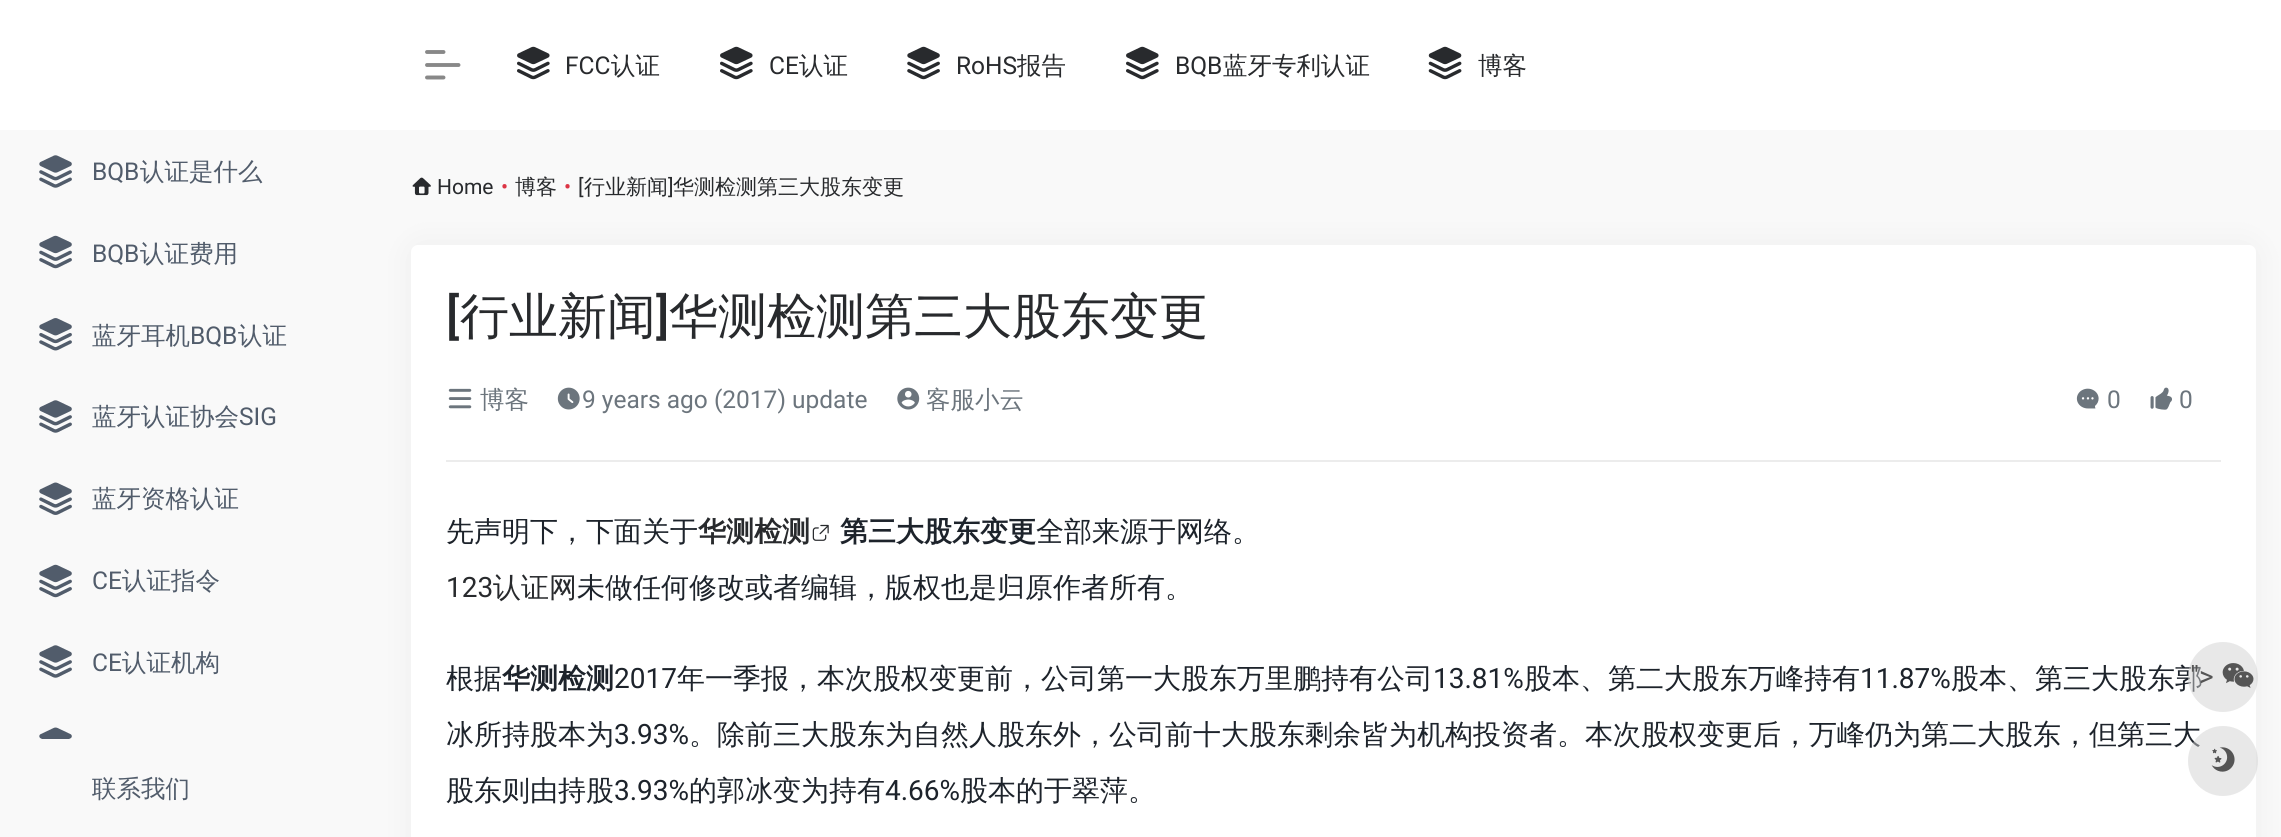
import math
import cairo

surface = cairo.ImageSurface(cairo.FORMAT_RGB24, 2281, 837)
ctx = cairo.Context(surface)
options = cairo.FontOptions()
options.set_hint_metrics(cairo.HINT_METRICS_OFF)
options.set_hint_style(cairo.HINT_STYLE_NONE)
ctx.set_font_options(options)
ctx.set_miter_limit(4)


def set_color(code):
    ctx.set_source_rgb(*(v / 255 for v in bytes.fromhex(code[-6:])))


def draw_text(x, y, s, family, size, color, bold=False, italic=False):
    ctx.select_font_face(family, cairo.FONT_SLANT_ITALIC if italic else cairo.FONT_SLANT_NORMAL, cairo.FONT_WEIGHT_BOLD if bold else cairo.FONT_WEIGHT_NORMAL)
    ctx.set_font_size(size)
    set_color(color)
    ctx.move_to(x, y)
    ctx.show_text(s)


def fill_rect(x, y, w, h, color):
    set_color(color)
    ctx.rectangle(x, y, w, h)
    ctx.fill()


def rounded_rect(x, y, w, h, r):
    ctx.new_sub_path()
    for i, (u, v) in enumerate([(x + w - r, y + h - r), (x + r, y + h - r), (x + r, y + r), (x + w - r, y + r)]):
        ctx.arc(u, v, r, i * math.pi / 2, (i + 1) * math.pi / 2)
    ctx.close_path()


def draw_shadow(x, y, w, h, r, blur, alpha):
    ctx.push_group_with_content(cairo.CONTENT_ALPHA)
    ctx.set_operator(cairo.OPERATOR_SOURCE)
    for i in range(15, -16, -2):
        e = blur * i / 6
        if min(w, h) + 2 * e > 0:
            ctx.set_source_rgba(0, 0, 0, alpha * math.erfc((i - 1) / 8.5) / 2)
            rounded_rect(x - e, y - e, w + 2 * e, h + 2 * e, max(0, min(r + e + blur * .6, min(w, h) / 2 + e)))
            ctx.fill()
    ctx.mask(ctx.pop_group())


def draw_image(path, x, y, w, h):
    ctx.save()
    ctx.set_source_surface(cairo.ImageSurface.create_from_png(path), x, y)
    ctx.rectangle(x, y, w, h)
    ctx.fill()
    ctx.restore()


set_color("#f9f9f9")
ctx.paint()
draw_image("assets/img1.png", 39, 155, 33, 33)
draw_text(92, 180, "BQB", "Roboto", 24.5, "#515c6b")
draw_text(140, 180, "认证是什么", "WenQuanYi Zen Hei Medium", 24.5, "#515c6b")
draw_image("assets/img2.png", 39, 235, 33, 34)
draw_text(92, 262, "BQB", "Roboto", 24.5, "#515c6b")
draw_text(140, 262, "认证费用", "WenQuanYi Zen Hei Medium", 24.5, "#515c6b")
draw_image("assets/img3.png", 39, 318, 33, 33)
draw_text(92, 344, "蓝牙耳机", "WenQuanYi Zen Hei Medium", 24.5, "#515c6b")
draw_text(190, 344, "BQB", "Roboto", 24.5, "#515c6b")
draw_text(238, 344, "认证", "WenQuanYi Zen Hei Medium", 24.5, "#515c6b")
draw_image("assets/img1.png", 39, 400, 33, 33)
draw_text(92, 425, "蓝牙认证协会", "WenQuanYi Zen Hei Medium", 24.5, "#515c6b")
draw_text(239, 425, "SIG", "Roboto", 24.5, "#515c6b")
draw_image("assets/img4.png", 39, 482, 33, 33)
draw_text(92, 507, "蓝牙资格认证", "WenQuanYi Zen Hei Medium", 24.5, "#515c6b")
draw_image("assets/img2.png", 39, 564, 33, 34)
draw_text(92, 589, "CE", "Roboto", 24.5, "#515c6b")
draw_text(122, 589, "认证指令", "WenQuanYi Zen Hei Medium", 24.5, "#515c6b")
draw_image("assets/img1.png", 39, 645, 33, 33)
draw_text(92, 671, "CE", "Roboto", 24.5, "#515c6b")
draw_text(122, 671, "认证机构", "WenQuanYi Zen Hei Medium", 24.5, "#515c6b")
draw_image("assets/img5.png", 39, 727, 33, 12)
draw_text(92, 797, "联系我们", "WenQuanYi Zen Hei Medium", 24.5, "#515c6b")
fill_rect(0, 0, 2281, 130, "#ffffff")
ctx.new_path()
ctx.move_to(427, 52)
ctx.line_to(443.5, 52)
ctx.move_to(427, 65)
ctx.line_to(458.5, 65)
ctx.move_to(427, 77.5)
ctx.line_to(443.5, 77.5)
set_color("#888888")
ctx.set_line_width(3.9)
ctx.set_line_cap(cairo.LINE_CAP_ROUND)
ctx.set_line_join(cairo.LINE_JOIN_ROUND)
ctx.stroke()
draw_image("assets/img6.png", 517, 46, 33, 34)
draw_text(565, 74, "FCC", "Roboto", 24.5, "#282a2d")
draw_text(611, 74, "认证", "WenQuanYi Zen Hei Medium", 24.5, "#282a2d")
draw_image("assets/img6.png", 720, 46, 33, 34)
draw_text(769, 74, "CE", "Roboto", 24.5, "#282a2d")
draw_text(799, 74, "认证", "WenQuanYi Zen Hei Medium", 24.5, "#282a2d")
draw_image("assets/img7.png", 907, 46, 33, 34)
draw_text(956, 74, "RoHS", "Roboto", 24.5, "#282a2d")
draw_text(1017, 74, "报告", "WenQuanYi Zen Hei Medium", 24.5, "#282a2d")
draw_image("assets/img6.png", 1126, 46, 33, 34)
draw_text(1175, 74, "BQB", "Roboto", 24.5, "#282a2d")
draw_text(1223, 74, "蓝牙专利认证", "WenQuanYi Zen Hei Medium", 24.5, "#282a2d")
draw_image("assets/img8.png", 1428, 46, 34, 34)
draw_text(1478, 74, "博客", "WenQuanYi Zen Hei Medium", 24.5, "#282a2d")
draw_image("assets/img9.png", 412, 177, 19, 19)
draw_text(437, 194, "Home", "Roboto", 21, "#282a2d")
draw_text(501, 194, "•", "Roboto", 21, "#dc3545")
draw_text(515, 194, "博客", "WenQuanYi Zen Hei Medium", 21, "#282a2d")
draw_text(564, 194, "•", "Roboto", 21, "#dc3545")
draw_text(578, 194, "[", "Roboto", 21, "#282a2d")
draw_text(584, 194, "行业新闻", "WenQuanYi Zen Hei Medium", 21, "#282a2d")
draw_text(668, 194, "]", "Roboto", 21, "#282a2d")
draw_text(673, 194, "华测检测第三大股东变更", "WenQuanYi Zen Hei Medium", 21, "#282a2d")
set_color("#9e9e9e")
draw_shadow(420, 254, 1827, 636, 0, 17.5, 0.2)
set_color("#ffffff")
rounded_rect(411, 245, 1845, 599, 7)
ctx.fill()
draw_text(446, 333, "[", "Roboto Medium", 49, "#282a2d")
draw_text(460, 333, "行业新闻", "WenQuanYi Zen Hei Medium", 49, "#282a2d")
draw_text(656, 333, "]", "Roboto Medium", 49, "#282a2d")
draw_text(669, 333, "华测检测第三大股东变更", "WenQuanYi Zen Hei Medium", 49, "#282a2d")
fill_rect(446, 460, 1775, 2, "#ececec")
draw_image("assets/img10.png", 448, 388, 24, 21)
draw_text(480, 408, "博客", "WenQuanYi Zen Hei Medium", 24.5, "#6c757d")
draw_image("assets/img11.png", 557, 387, 23, 23)
draw_text(582, 408, "9 years ago (2017) update", "Roboto", 24.5, "#6c757d")
draw_image("assets/img12.png", 897, 387, 23, 23)
draw_text(926, 408, "客服小云", "WenQuanYi Zen Hei Medium", 24.5, "#6c757d")
draw_image("assets/img13.png", 2076, 388, 23, 21)
draw_text(2107, 408, "0", "Roboto", 24.5, "#6c757d")
draw_image("assets/img14.png", 2150, 387, 22, 23)
draw_text(2179, 408, "0", "Roboto", 24.5, "#6c757d")
draw_text(446, 541, "先声明下，下面关于", "WenQuanYi Zen Hei Medium", 28, "#1d232b")
draw_text(698, 541, "华测检测", "WenQuanYi Zen Hei", 28, "#282a2d", bold=True)
draw_image("assets/img15.png", 812, 524, 17, 17)
draw_text(840, 541, "第三大股东变更", "WenQuanYi Zen Hei", 28, "#1d232b", bold=True)
draw_text(1036, 541, "全部来源于网络。", "WenQuanYi Zen Hei Medium", 28, "#1d232b")
draw_text(446, 597, "123", "Roboto", 28, "#282a2d")
draw_text(493, 597, "认证网", "WenQuanYi Zen Hei Medium", 28, "#282a2d")
draw_text(577, 597, "未做任何修改或者编辑，版权也是归原作者所有。", "WenQuanYi Zen Hei Medium", 28, "#1d232b")
draw_text(446, 688, "根据", "WenQuanYi Zen Hei Medium", 28, "#1d232b")
draw_text(502, 688, "华测检测", "WenQuanYi Zen Hei", 28, "#1d232b", bold=True)
draw_text(614, 688, "2017", "Roboto", 28, "#1d232b")
draw_text(677, 688, "年一季报，本次股权变更前，公司第一大股东万里鹏持有公司", "WenQuanYi Zen Hei Medium", 28, "#1d232b")
draw_text(1433, 688, "13.81%", "Roboto", 28, "#1d232b")
draw_text(1524, 688, "股本、第二大股东万峰持有", "WenQuanYi Zen Hei Medium", 28, "#1d232b")
draw_text(1860, 688, "11.87%", "Roboto", 28, "#1d232b")
draw_text(1951, 688, "股本、第三大股东郭", "WenQuanYi Zen Hei Medium", 28, "#1d232b")
draw_text(446, 744, "冰所持股本为", "WenQuanYi Zen Hei Medium", 28, "#1d232b")
draw_text(614, 744, "3.93%", "Roboto", 28, "#1d232b")
draw_text(689, 744, "。除前三大股东为自然人股东外，公司前十大股东剩余皆为机构投资者。本次股权变更后，万峰仍为第二大股东，但第三大", "WenQuanYi Zen Hei Medium", 28, "#1d232b")
draw_text(446, 800, "股东则由持股", "WenQuanYi Zen Hei Medium", 28, "#1d232b")
draw_text(614, 800, "3.93%", "Roboto", 28, "#1d232b")
draw_text(689, 800, "的郭冰变为持有", "WenQuanYi Zen Hei Medium", 28, "#1d232b")
draw_text(885, 800, "4.66%", "Roboto", 28, "#1d232b")
draw_text(960, 800, "股本的于翠萍。", "WenQuanYi Zen Hei Medium", 28, "#1d232b")
ctx.set_source_rgba(0.824, 0.824, 0.824, 0.5)
ctx.new_path()
ctx.arc(2223, 677, 35, 0, 2 * math.pi)
ctx.fill()
draw_text(2190, 686, "\">", "Roboto", 28, "#555555")
draw_image("assets/img16.png", 2222, 663, 32, 25)
ctx.set_source_rgba(0.824, 0.824, 0.824, 0.5)
ctx.arc(2223, 761, 35, 0, 2 * math.pi)
ctx.fill()
draw_image("assets/img17.png", 2211, 747, 24, 25)
surface.write_to_png("output.png")
